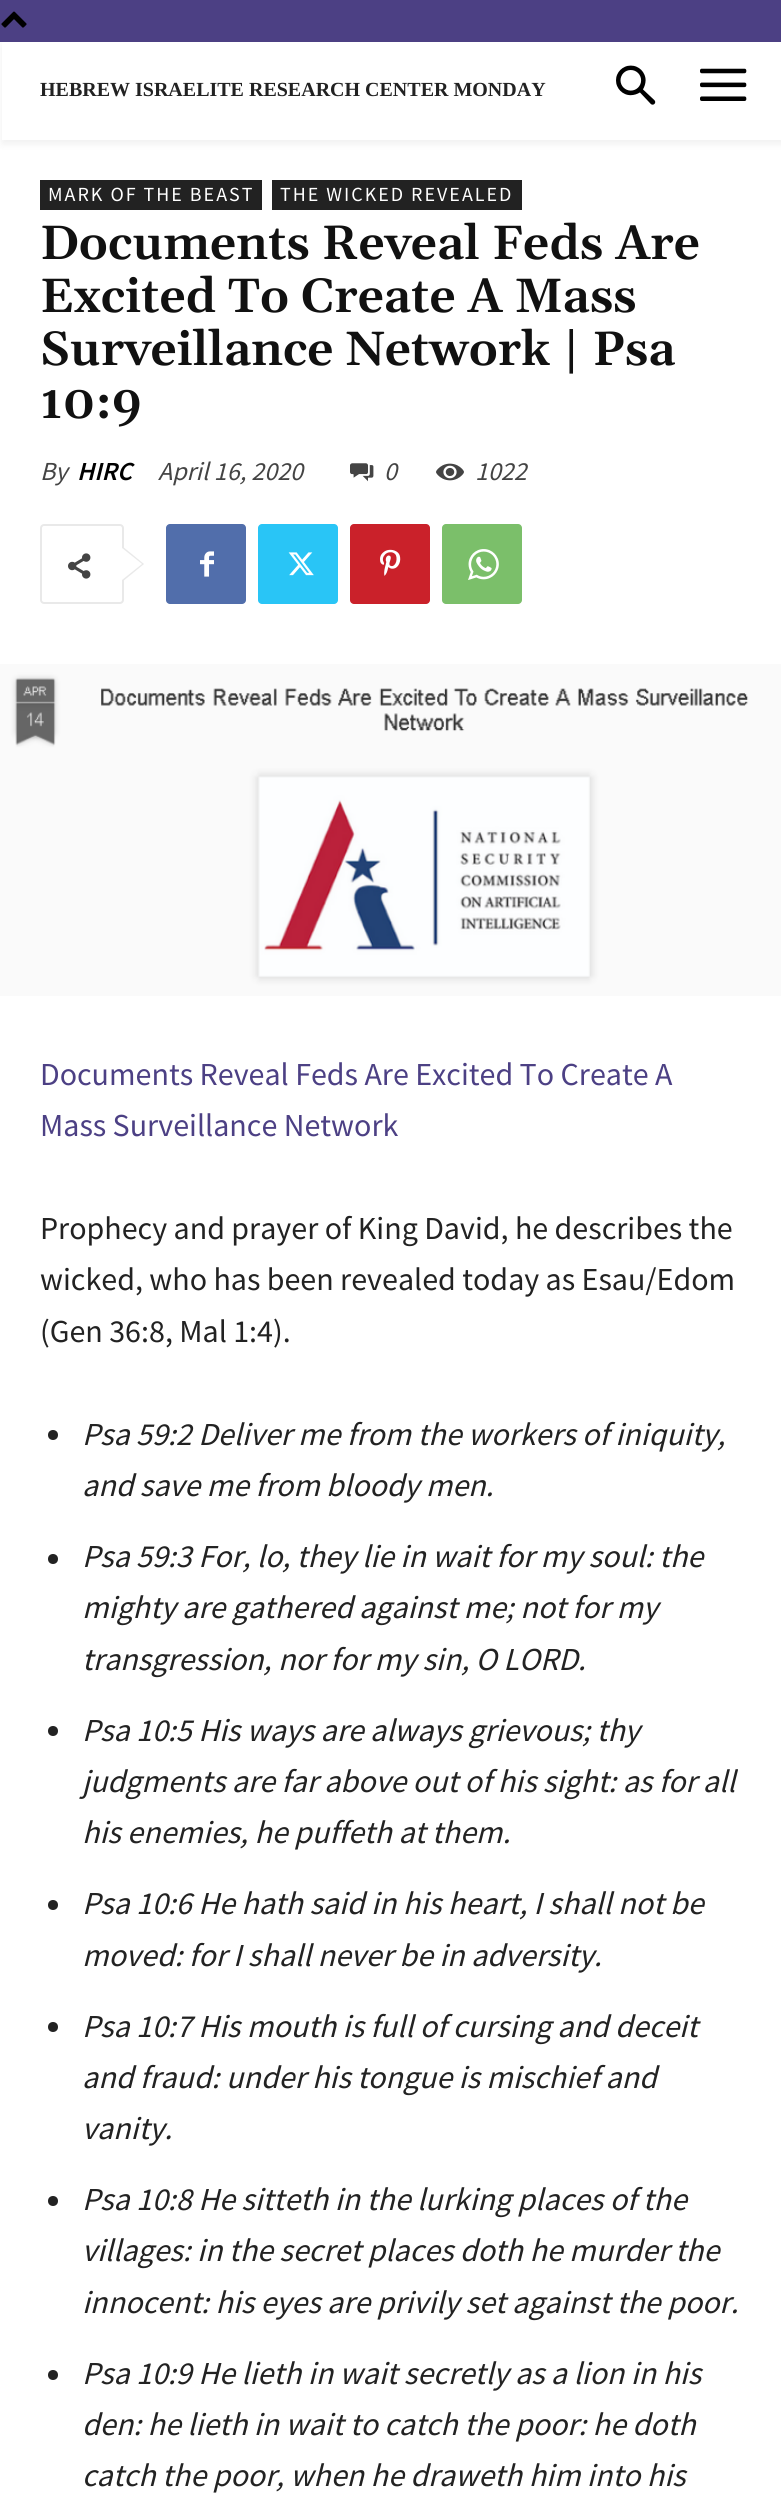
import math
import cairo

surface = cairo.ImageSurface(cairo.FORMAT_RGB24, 781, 2496)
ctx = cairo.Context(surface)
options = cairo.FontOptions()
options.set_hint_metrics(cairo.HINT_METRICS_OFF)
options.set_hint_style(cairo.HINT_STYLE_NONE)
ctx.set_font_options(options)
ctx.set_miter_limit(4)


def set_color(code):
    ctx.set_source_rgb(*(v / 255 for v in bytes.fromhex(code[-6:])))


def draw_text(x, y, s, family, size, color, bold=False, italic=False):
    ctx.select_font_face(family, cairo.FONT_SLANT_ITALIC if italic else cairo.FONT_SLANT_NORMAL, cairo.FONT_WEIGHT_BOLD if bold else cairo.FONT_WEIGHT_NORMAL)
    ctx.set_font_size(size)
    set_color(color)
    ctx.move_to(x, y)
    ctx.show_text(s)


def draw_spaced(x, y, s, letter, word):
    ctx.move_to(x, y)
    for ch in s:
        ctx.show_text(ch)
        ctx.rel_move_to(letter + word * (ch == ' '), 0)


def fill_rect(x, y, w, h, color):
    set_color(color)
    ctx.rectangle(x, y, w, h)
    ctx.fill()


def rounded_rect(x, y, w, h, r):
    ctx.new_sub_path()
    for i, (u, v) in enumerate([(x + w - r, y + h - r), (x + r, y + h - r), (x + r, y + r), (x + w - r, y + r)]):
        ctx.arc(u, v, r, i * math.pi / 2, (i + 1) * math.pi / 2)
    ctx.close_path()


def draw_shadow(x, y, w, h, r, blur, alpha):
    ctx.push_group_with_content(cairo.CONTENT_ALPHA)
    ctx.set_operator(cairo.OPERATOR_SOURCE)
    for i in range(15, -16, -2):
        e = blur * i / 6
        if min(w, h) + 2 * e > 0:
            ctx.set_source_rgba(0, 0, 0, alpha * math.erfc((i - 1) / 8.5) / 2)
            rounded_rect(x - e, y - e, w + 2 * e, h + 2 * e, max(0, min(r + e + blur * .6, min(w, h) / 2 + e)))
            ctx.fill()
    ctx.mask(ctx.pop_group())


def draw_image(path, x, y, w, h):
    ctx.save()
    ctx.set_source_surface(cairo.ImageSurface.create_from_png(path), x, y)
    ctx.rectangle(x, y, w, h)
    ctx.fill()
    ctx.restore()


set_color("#ffffff")
ctx.paint()
fill_rect(0, 0, 781, 42, "#4c4084")
draw_image("assets/img1.png", 1, 11, 26, 17)
draw_image("assets/img2.png", 616, 65, 40, 40)
draw_image("assets/img3.png", 700, 68, 47, 33)
ctx.save()
ctx.set_fill_rule(cairo.FILL_RULE_EVEN_ODD)
ctx.new_path()
ctx.move_to(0, 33)
ctx.line_to(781, 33)
ctx.line_to(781, 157)
ctx.line_to(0, 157)
ctx.close_path()
ctx.move_to(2, 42)
ctx.line_to(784, 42)
ctx.line_to(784, 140)
ctx.line_to(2, 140)
ctx.close_path()
ctx.clip()
set_color("#000000")
draw_shadow(2, 46, 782, 98, 0, 4, 0.06)
ctx.restore()
draw_text(40, 96, "HEBREW ISRAELITE RESEARCH CENTER MONDAY", "Liberation Serif", 20, "#222222", bold=True)
fill_rect(40, 180, 222, 30, "#222222")
ctx.select_font_face("Source Sans Pro")
set_color("#ffffff")
draw_spaced(48, 201, "MARK OF THE BEAST", 2, 0)
fill_rect(272, 180, 250, 30, "#222222")
set_color("#ffffff")
draw_spaced(280, 201, "THE WICKED REVEALED", 2, 0)
draw_text(40, 259, "Documents Reveal Feds Are", "Gelasio SemiBold", 48, "#111111")
draw_text(40, 312, "Excited To Create A Mass", "Gelasio SemiBold", 48, "#111111")
draw_text(40, 365, "Surveillance Network | Psa", "Gelasio SemiBold", 48, "#111111")
draw_text(40, 418, "10:9", "Gelasio SemiBold", 48, "#111111")
draw_text(40, 480, "By", "Source Sans Pro", 26, "#444444", italic=True)
draw_text(77, 480, "HIRC", "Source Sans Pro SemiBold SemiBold", 26, "#000000", italic=True)
draw_text(158, 480, "April 16, 2020", "Source Sans Pro", 26, "#444444", italic=True)
draw_image("assets/img4.png", 350, 463, 24, 19)
draw_text(384, 480, "0", "Source Sans Pro", 26, "#444444", italic=True)
draw_image("assets/img5.png", 436, 463, 28, 18)
draw_text(475, 480, "1022", "Source Sans Pro", 26, "#444444", italic=True)
rounded_rect(41, 525, 82, 78, 3)
set_color("#e9e9e9")
ctx.stroke()
ctx.new_path()
ctx.move_to(122, 582)
ctx.line_to(122, 546)
ctx.line_to(144, 564)
ctx.close_path()
ctx.fill()
draw_image("assets/img6.png", 68, 553, 23, 26)
set_color("#ffffff")
ctx.new_path()
ctx.move_to(122, 580)
ctx.line_to(122, 548)
ctx.line_to(142, 564)
ctx.close_path()
ctx.fill()
set_color("#516eab")
rounded_rect(166, 524, 80, 80, 4)
ctx.fill()
draw_image("assets/img7.png", 200, 551, 14, 26)
set_color("#29c5f6")
rounded_rect(258, 524, 80, 80, 4)
ctx.fill()
draw_image("assets/img8.png", 288, 552, 26, 24)
set_color("#ca212a")
rounded_rect(350, 524, 80, 80, 4)
ctx.fill()
draw_image("assets/img9.png", 380, 549, 21, 27)
set_color("#7bbf6a")
rounded_rect(442, 524, 80, 80, 4)
ctx.fill()
draw_image("assets/img10.png", 468, 549, 31, 31)
draw_image("assets/img11.png", 0, 664, 781, 332)
draw_text(40, 1085, "Documents Reveal Feds Are Excited To Create A", "Source Sans Pro", 32, "#4c4084")
draw_text(40, 1136, "Mass Surveillance Network", "Source Sans Pro", 32, "#4c4084")
draw_text(40, 1239, "Prophecy and prayer of King David, he describes the", "Source Sans Pro", 32, "#222222")
draw_text(40, 1290, "wicked, who has been revealed today as Esau/Edom", "Source Sans Pro", 32, "#222222")
draw_text(40, 1342, "(Gen 36:8, Mal 1:4).", "Source Sans Pro", 32, "#222222")
ctx.new_path()
ctx.arc(53, 1435, 5, 0, 2 * math.pi)
ctx.fill()
draw_text(82, 1445, "Psa 59:2 Deliver me from the workers of iniquity,", "Source Sans Pro", 32, "#222222", italic=True)
draw_text(82, 1496, "and save me from bloody men.", "Source Sans Pro", 32, "#222222", italic=True)
ctx.new_path()
ctx.arc(53, 1559, 5, 0, 2 * math.pi)
ctx.fill()
draw_text(82, 1567, "Psa 59:3 For, lo, they lie in wait for my soul: the", "Source Sans Pro", 32, "#222222", italic=True)
draw_text(82, 1618, "mighty are gathered against me; not for my", "Source Sans Pro", 32, "#222222", italic=True)
draw_text(82, 1670, "transgression, nor for my sin, O LORD.", "Source Sans Pro", 32, "#222222", italic=True)
ctx.new_path()
ctx.arc(53, 1731, 5, 0, 2 * math.pi)
ctx.fill()
draw_text(82, 1741, "Psa 10:5 His ways are always grievous; thy", "Source Sans Pro", 32, "#222222", italic=True)
draw_text(82, 1792, "judgments are far above out of his sight: as for all", "Source Sans Pro", 32, "#222222", italic=True)
draw_text(82, 1843, "his enemies, he puffeth at them.", "Source Sans Pro", 32, "#222222", italic=True)
ctx.new_path()
ctx.arc(53, 1905, 5, 0, 2 * math.pi)
ctx.fill()
draw_text(82, 1914, "Psa 10:6 He hath said in his heart, I shall not be", "Source Sans Pro", 32, "#222222", italic=True)
draw_text(82, 1966, "moved: for I shall never be in adversity.", "Source Sans Pro", 32, "#222222", italic=True)
ctx.new_path()
ctx.arc(53, 2027, 5, 0, 2 * math.pi)
ctx.fill()
draw_text(82, 2037, "Psa 10:7 His mouth is full of cursing and deceit", "Source Sans Pro", 32, "#222222", italic=True)
draw_text(82, 2088, "and fraud: under his tongue is mischief and", "Source Sans Pro", 32, "#222222", italic=True)
draw_text(82, 2139, "vanity.", "Source Sans Pro", 32, "#222222", italic=True)
ctx.new_path()
ctx.arc(53, 2201, 5, 0, 2 * math.pi)
ctx.fill()
draw_text(82, 2210, "Psa 10:8 He sitteth in the lurking places of the", "Source Sans Pro", 32, "#222222", italic=True)
draw_text(82, 2261, "villages: in the secret places doth he murder the", "Source Sans Pro", 32, "#222222", italic=True)
draw_text(82, 2313, "innocent: his eyes are privily set against the poor.", "Source Sans Pro", 32, "#222222", italic=True)
ctx.new_path()
ctx.arc(53, 2375, 5, 0, 2 * math.pi)
ctx.fill()
draw_text(82, 2384, "Psa 10:9 He lieth in wait secretly as a lion in his", "Source Sans Pro", 32, "#222222", italic=True)
draw_text(82, 2435, "den: he lieth in wait to catch the poor: he doth", "Source Sans Pro", 32, "#222222", italic=True)
draw_text(82, 2486, "catch the poor, when he draweth him into his", "Source Sans Pro", 32, "#222222", italic=True)
surface.write_to_png("output.png")
